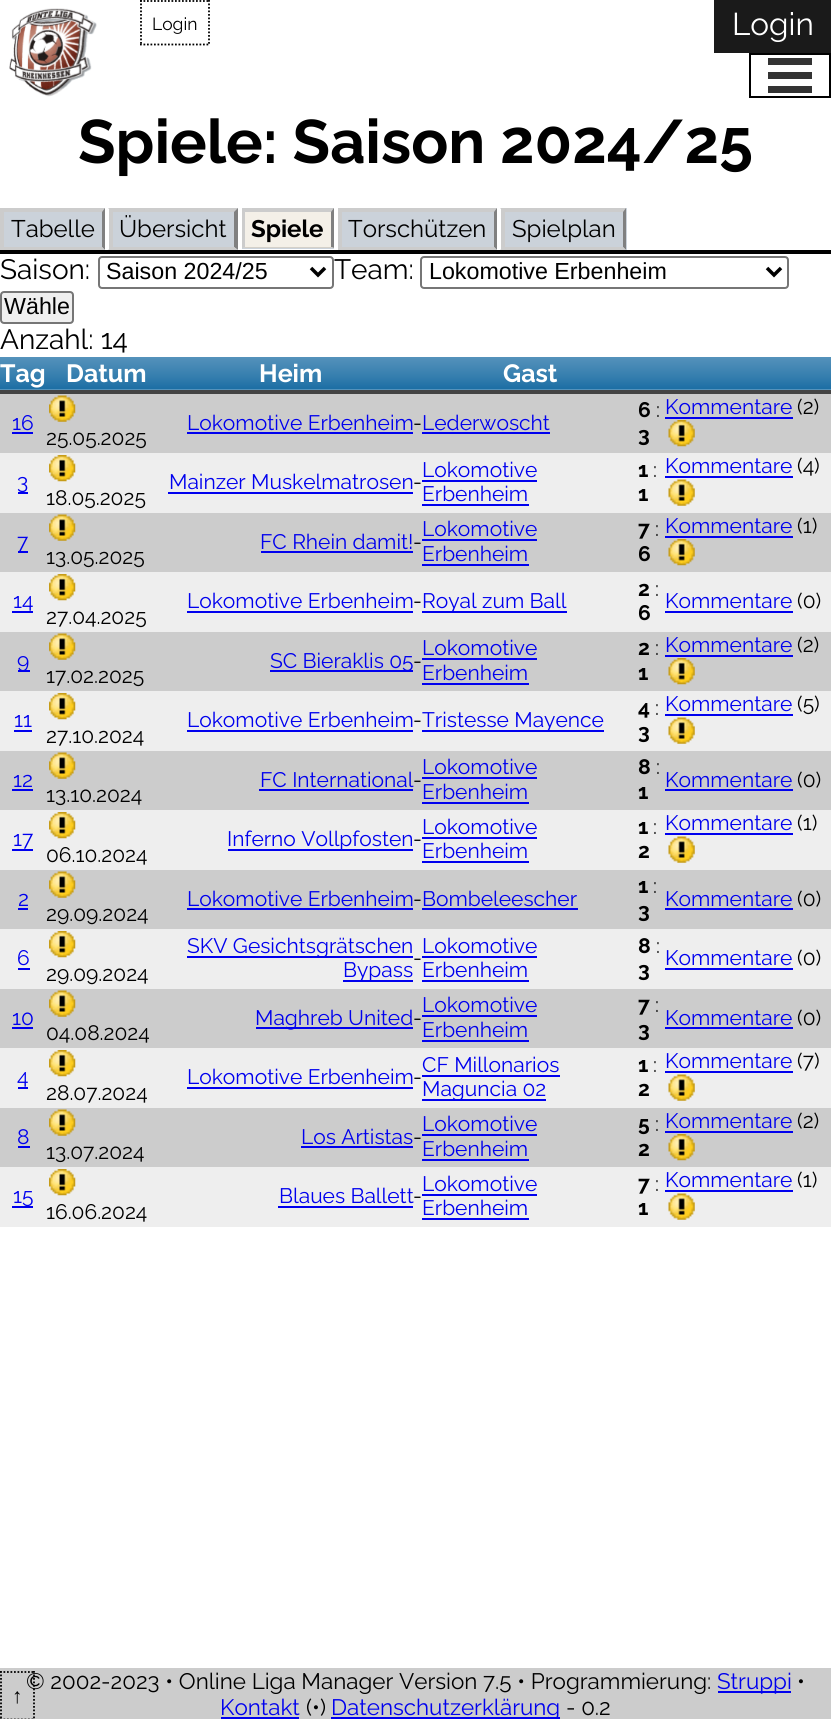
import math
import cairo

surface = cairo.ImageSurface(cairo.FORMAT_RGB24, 831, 1719)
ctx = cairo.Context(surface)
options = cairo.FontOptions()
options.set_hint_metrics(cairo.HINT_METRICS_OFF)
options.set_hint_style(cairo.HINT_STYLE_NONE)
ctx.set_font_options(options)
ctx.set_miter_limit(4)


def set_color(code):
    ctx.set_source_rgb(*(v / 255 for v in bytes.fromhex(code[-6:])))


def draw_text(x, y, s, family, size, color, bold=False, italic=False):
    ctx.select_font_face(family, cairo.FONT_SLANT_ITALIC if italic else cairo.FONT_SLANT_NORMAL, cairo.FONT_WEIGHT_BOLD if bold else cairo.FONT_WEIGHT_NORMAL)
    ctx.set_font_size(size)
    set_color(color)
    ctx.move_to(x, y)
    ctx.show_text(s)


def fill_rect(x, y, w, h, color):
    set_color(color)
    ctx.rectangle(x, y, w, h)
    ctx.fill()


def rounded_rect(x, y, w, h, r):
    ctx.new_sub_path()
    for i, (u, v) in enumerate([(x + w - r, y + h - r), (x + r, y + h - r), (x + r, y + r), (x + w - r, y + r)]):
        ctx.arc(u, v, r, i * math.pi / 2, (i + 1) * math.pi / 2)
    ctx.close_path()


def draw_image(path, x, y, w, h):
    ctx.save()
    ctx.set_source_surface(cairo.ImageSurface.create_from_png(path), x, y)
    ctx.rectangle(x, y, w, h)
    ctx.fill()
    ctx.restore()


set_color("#ffffff")
ctx.paint()
fill_rect(714, 0, 117, 53, "#1a1a1a")
draw_text(732, 35, "Login", "Raleway", 31.5, "#ffffff")
draw_image("assets/img1.png", 9, 8, 88, 89)
ctx.new_path()
ctx.move_to(140, 1)
ctx.line_to(210, 1)
set_color("#000000")
ctx.set_line_width(1.8)
ctx.set_dash([1.75, 1.75])
ctx.stroke()
ctx.new_path()
ctx.move_to(209, 0)
ctx.line_to(209, 45.5)
ctx.stroke()
ctx.new_path()
ctx.move_to(140, 44.5)
ctx.line_to(210, 44.5)
ctx.stroke()
ctx.new_path()
ctx.move_to(141, 0)
ctx.line_to(141, 45.5)
ctx.stroke()
draw_text(152, 30, "Login", "Raleway", 17.5, "#000000")
draw_text(78, 163, "Spiele: Saison 2024/25", "Raleway", 61.25, "#000000", bold=True)
fill_rect(0, 250, 831, 4, "#000000")
fill_rect(4, 208, 101, 42, "#cbd2da")
set_color("#cccccc")
ctx.new_path()
ctx.move_to(0, 208)
ctx.line_to(105, 208)
ctx.line_to(102, 212)
ctx.line_to(4, 212)
ctx.close_path()
ctx.fill()
set_color("#808080")
ctx.new_path()
ctx.move_to(105, 208)
ctx.line_to(105, 250)
ctx.line_to(102, 247)
ctx.line_to(102, 212)
ctx.close_path()
ctx.fill()
set_color("#cccccc")
ctx.new_path()
ctx.move_to(105, 250)
ctx.line_to(0, 250)
ctx.line_to(4, 247)
ctx.line_to(102, 247)
ctx.close_path()
ctx.fill()
fill_rect(0, 208, 4, 42, "#cccccc")
draw_text(11, 237, "Tabelle", "Raleway", 24, "#000000")
fill_rect(113, 208, 125, 42, "#cbd2da")
set_color("#cccccc")
ctx.new_path()
ctx.move_to(108, 208)
ctx.line_to(238, 208)
ctx.line_to(234, 212)
ctx.line_to(112, 212)
ctx.close_path()
ctx.fill()
set_color("#808080")
ctx.new_path()
ctx.move_to(238, 208)
ctx.line_to(238, 250)
ctx.line_to(234, 247)
ctx.line_to(234, 212)
ctx.close_path()
ctx.fill()
set_color("#cccccc")
ctx.new_path()
ctx.move_to(238, 250)
ctx.line_to(108, 250)
ctx.line_to(112, 247)
ctx.line_to(234, 247)
ctx.close_path()
ctx.fill()
fill_rect(109, 208, 4, 42, "#cccccc")
draw_text(119, 237, "Übersicht", "Raleway", 24, "#000000")
fill_rect(242, 208, 92, 41, "#cbd2da")
fill_rect(245, 212, 86, 35, "#f4f0e8")
set_color("#cccccc")
ctx.new_path()
ctx.move_to(242, 208)
ctx.line_to(334, 208)
ctx.line_to(331, 212)
ctx.line_to(245, 212)
ctx.close_path()
ctx.fill()
set_color("#808080")
ctx.new_path()
ctx.move_to(334, 208)
ctx.line_to(334, 248)
ctx.line_to(331, 247)
ctx.line_to(331, 212)
ctx.close_path()
ctx.fill()
set_color("#d4d0c8")
ctx.new_path()
ctx.move_to(334, 248)
ctx.line_to(242, 248)
ctx.line_to(245, 247)
ctx.line_to(331, 247)
ctx.close_path()
ctx.fill()
set_color("#cccccc")
ctx.new_path()
ctx.move_to(242, 248)
ctx.line_to(242, 208)
ctx.line_to(245, 212)
ctx.line_to(245, 247)
ctx.close_path()
ctx.fill()
draw_text(251, 237, "Spiele", "Raleway", 24, "#000000", bold=True)
fill_rect(342, 208, 155, 42, "#cbd2da")
set_color("#cccccc")
ctx.new_path()
ctx.move_to(338, 208)
ctx.line_to(497, 208)
ctx.line_to(494, 212)
ctx.line_to(341, 212)
ctx.close_path()
ctx.fill()
set_color("#808080")
ctx.new_path()
ctx.move_to(497, 208)
ctx.line_to(497, 250)
ctx.line_to(494, 247)
ctx.line_to(494, 212)
ctx.close_path()
ctx.fill()
set_color("#cccccc")
ctx.new_path()
ctx.move_to(497, 250)
ctx.line_to(338, 250)
ctx.line_to(341, 247)
ctx.line_to(494, 247)
ctx.close_path()
ctx.fill()
fill_rect(338, 208, 4, 42, "#cccccc")
draw_text(348, 237, "Torschützen", "Raleway", 24, "#000000")
fill_rect(505, 208, 122, 42, "#cbd2da")
set_color("#cccccc")
ctx.new_path()
ctx.move_to(500, 208)
ctx.line_to(626, 208)
ctx.line_to(623, 212)
ctx.line_to(504, 212)
ctx.close_path()
ctx.fill()
set_color("#808080")
ctx.new_path()
ctx.move_to(626, 208)
ctx.line_to(626, 250)
ctx.line_to(623, 247)
ctx.line_to(623, 212)
ctx.close_path()
ctx.fill()
set_color("#cccccc")
ctx.new_path()
ctx.move_to(626, 250)
ctx.line_to(500, 250)
ctx.line_to(504, 247)
ctx.line_to(623, 247)
ctx.close_path()
ctx.fill()
fill_rect(501, 208, 4, 42, "#cccccc")
draw_text(512, 237, "Spielplan", "Raleway", 24, "#000000")
draw_text(0, 279, "Saison:", "Raleway", 28, "#000000")
rounded_rect(99, 257, 234, 31, 3)
set_color("#767676")
ctx.set_line_width(2)
ctx.set_dash([])
ctx.stroke()
ctx.new_path()
ctx.move_to(311, 268)
ctx.line_to(318, 275)
ctx.line_to(325, 268)
set_color("#000000")
ctx.set_line_width(3.5)
ctx.stroke()
draw_text(106, 279, "Saison 2024/25", "Liberation Sans", 23.25, "#000000")
draw_text(334, 279, "Team:", "Raleway", 28, "#000000")
rounded_rect(421, 257, 367, 31, 3)
set_color("#767676")
ctx.set_line_width(2)
ctx.stroke()
ctx.new_path()
ctx.move_to(767, 268)
ctx.line_to(774, 275)
ctx.line_to(781, 268)
set_color("#000000")
ctx.set_line_width(3.5)
ctx.stroke()
draw_text(429, 279, "Lokomotive Erbenheim", "Liberation Sans", 23.25, "#000000")
set_color("#efefef")
rounded_rect(1, 292, 72, 31, 3)
ctx.fill_preserve()
set_color("#767676")
ctx.set_line_width(2)
ctx.stroke()
draw_text(4, 314, "Wähle", "Liberation Sans", 23.25, "#000000")
draw_text(0, 349, "Anzahl: 14", "Raleway", 28, "#000000")
fill_rect(0, 453, 831, 774, "#eeeeee")
gradient = cairo.LinearGradient(829, 357, 829, 389)
gradient.add_color_stop_rgba(0, 0.333, 0.573, 0.733, 1)
gradient.add_color_stop_rgba(0.66, 0.196, 0.486, 0.678, 1)
gradient.add_color_stop_rgba(1, 0.11, 0.431, 0.643, 1)
ctx.set_source(gradient)
ctx.rectangle(826, 357, 5, 32)
ctx.fill()
gradient = cairo.LinearGradient(829, 389, 829, 420)
gradient.add_color_stop_rgba(0, 0.333, 0.573, 0.733, 1)
gradient.add_color_stop_rgba(0.66, 0.196, 0.486, 0.678, 1)
gradient.add_color_stop_rgba(1, 0.11, 0.431, 0.643, 1)
ctx.set_source(gradient)
ctx.rectangle(826, 389, 5, 1)
ctx.fill()
fill_rect(0, 390, 831, 4, "#444444")
gradient = cairo.LinearGradient(23, 357, 23, 389)
gradient.add_color_stop_rgba(0, 0.333, 0.573, 0.733, 1)
gradient.add_color_stop_rgba(0.66, 0.196, 0.486, 0.678, 1)
gradient.add_color_stop_rgba(1, 0.11, 0.431, 0.643, 1)
ctx.set_source(gradient)
ctx.rectangle(0, 357, 46, 32)
ctx.fill()
gradient = cairo.LinearGradient(23, 389, 23, 420)
gradient.add_color_stop_rgba(0, 0.333, 0.573, 0.733, 1)
gradient.add_color_stop_rgba(0.66, 0.196, 0.486, 0.678, 1)
gradient.add_color_stop_rgba(1, 0.11, 0.431, 0.643, 1)
ctx.set_source(gradient)
ctx.rectangle(0, 389, 46, 1)
ctx.fill()
draw_text(0, 382, "Tag", "Raleway", 25, "#ffffff", bold=True)
gradient = cairo.LinearGradient(107, 357, 107, 389)
gradient.add_color_stop_rgba(0, 0.333, 0.573, 0.733, 1)
gradient.add_color_stop_rgba(0.66, 0.196, 0.486, 0.678, 1)
gradient.add_color_stop_rgba(1, 0.11, 0.431, 0.643, 1)
ctx.set_source(gradient)
ctx.rectangle(46, 357, 122, 32)
ctx.fill()
gradient = cairo.LinearGradient(107, 389, 107, 420)
gradient.add_color_stop_rgba(0, 0.333, 0.573, 0.733, 1)
gradient.add_color_stop_rgba(0.66, 0.196, 0.486, 0.678, 1)
gradient.add_color_stop_rgba(1, 0.11, 0.431, 0.643, 1)
ctx.set_source(gradient)
ctx.rectangle(46, 389, 122, 1)
ctx.fill()
draw_text(66, 382, "Datum", "Raleway", 25, "#ffffff", bold=True)
gradient = cairo.LinearGradient(291, 357, 291, 389)
gradient.add_color_stop_rgba(0, 0.333, 0.573, 0.733, 1)
gradient.add_color_stop_rgba(0.66, 0.196, 0.486, 0.678, 1)
gradient.add_color_stop_rgba(1, 0.11, 0.431, 0.643, 1)
ctx.set_source(gradient)
ctx.rectangle(168, 357, 245, 32)
ctx.fill()
gradient = cairo.LinearGradient(291, 389, 291, 420)
gradient.add_color_stop_rgba(0, 0.333, 0.573, 0.733, 1)
gradient.add_color_stop_rgba(0.66, 0.196, 0.486, 0.678, 1)
gradient.add_color_stop_rgba(1, 0.11, 0.431, 0.643, 1)
ctx.set_source(gradient)
ctx.rectangle(168, 389, 245, 1)
ctx.fill()
draw_text(259, 382, "Heim", "Raleway", 25, "#ffffff", bold=True)
gradient = cairo.LinearGradient(417, 357, 417, 389)
gradient.add_color_stop_rgba(0, 0.333, 0.573, 0.733, 1)
gradient.add_color_stop_rgba(0.66, 0.196, 0.486, 0.678, 1)
gradient.add_color_stop_rgba(1, 0.11, 0.431, 0.643, 1)
ctx.set_source(gradient)
ctx.rectangle(413, 357, 9, 32)
ctx.fill()
gradient = cairo.LinearGradient(417, 389, 417, 420)
gradient.add_color_stop_rgba(0, 0.333, 0.573, 0.733, 1)
gradient.add_color_stop_rgba(0.66, 0.196, 0.486, 0.678, 1)
gradient.add_color_stop_rgba(1, 0.11, 0.431, 0.643, 1)
ctx.set_source(gradient)
ctx.rectangle(413, 389, 9, 1)
ctx.fill()
gradient = cairo.LinearGradient(529, 357, 529, 389)
gradient.add_color_stop_rgba(0, 0.333, 0.573, 0.733, 1)
gradient.add_color_stop_rgba(0.66, 0.196, 0.486, 0.678, 1)
gradient.add_color_stop_rgba(1, 0.11, 0.431, 0.643, 1)
ctx.set_source(gradient)
ctx.rectangle(422, 357, 215, 32)
ctx.fill()
gradient = cairo.LinearGradient(529, 389, 529, 420)
gradient.add_color_stop_rgba(0, 0.333, 0.573, 0.733, 1)
gradient.add_color_stop_rgba(0.66, 0.196, 0.486, 0.678, 1)
gradient.add_color_stop_rgba(1, 0.11, 0.431, 0.643, 1)
ctx.set_source(gradient)
ctx.rectangle(422, 389, 215, 1)
ctx.fill()
draw_text(503, 382, "Gast", "Raleway", 25, "#ffffff", bold=True)
gradient = cairo.LinearGradient(651, 357, 651, 389)
gradient.add_color_stop_rgba(0, 0.333, 0.573, 0.733, 1)
gradient.add_color_stop_rgba(0.66, 0.196, 0.486, 0.678, 1)
gradient.add_color_stop_rgba(1, 0.11, 0.431, 0.643, 1)
ctx.set_source(gradient)
ctx.rectangle(637, 357, 28, 32)
ctx.fill()
gradient = cairo.LinearGradient(651, 389, 651, 420)
gradient.add_color_stop_rgba(0, 0.333, 0.573, 0.733, 1)
gradient.add_color_stop_rgba(0.66, 0.196, 0.486, 0.678, 1)
gradient.add_color_stop_rgba(1, 0.11, 0.431, 0.643, 1)
ctx.set_source(gradient)
ctx.rectangle(637, 389, 28, 1)
ctx.fill()
gradient = cairo.LinearGradient(746, 357, 746, 389)
gradient.add_color_stop_rgba(0, 0.333, 0.573, 0.733, 1)
gradient.add_color_stop_rgba(0.66, 0.196, 0.486, 0.678, 1)
gradient.add_color_stop_rgba(1, 0.11, 0.431, 0.643, 1)
ctx.set_source(gradient)
ctx.rectangle(665, 357, 161, 32)
ctx.fill()
gradient = cairo.LinearGradient(746, 389, 746, 420)
gradient.add_color_stop_rgba(0, 0.333, 0.573, 0.733, 1)
gradient.add_color_stop_rgba(0.66, 0.196, 0.486, 0.678, 1)
gradient.add_color_stop_rgba(1, 0.11, 0.431, 0.643, 1)
ctx.set_source(gradient)
ctx.rectangle(665, 389, 161, 1)
ctx.fill()
fill_rect(0, 394, 831, 59, "#cccccc")
draw_text(12, 430, "16", "Raleway", 21, "#0000ee")
fill_rect(12, 432, 21, 2, "#0000ee")
draw_text(187, 430, "Lokomotive Erbenheim", "Raleway", 21, "#0000ee")
fill_rect(187, 432, 226, 2, "#0000ee")
draw_text(413, 430, "-", "Raleway", 21, "#000000")
draw_text(422, 430, "Lederwoscht", "Raleway", 21, "#0000ee")
fill_rect(422, 432, 128, 2, "#0000ee")
draw_text(638, 417, "6", "Raleway", 21, "#000000", bold=True)
draw_text(656, 417, ":", "Raleway", 21, "#000000")
draw_text(638, 442, "3", "Raleway", 21, "#000000", bold=True)
draw_text(665, 414, "Kommentare", "Raleway", 21, "#0000ee")
fill_rect(665, 417, 128, 2, "#0000ee")
draw_text(797, 414, "(2)", "Raleway", 21, "#000000")
draw_image("assets/img2.png", 668, 420, 27, 27)
draw_image("assets/img3.png", 49, 395, 27, 27)
draw_text(46, 445, "25.05.2025", "Raleway", 21, "#000000")
fill_rect(18, 492, 10, 2, "#0000ee")
draw_text(17, 489, "3", "Raleway", 21, "#0000ee")
draw_text(169, 489, "Mainzer Muskelmatrosen", "Raleway", 21, "#0000ee")
fill_rect(168, 492, 245, 2, "#0000ee")
draw_text(413, 489, "-", "Raleway", 21, "#000000")
draw_text(422, 477, "Lokomotive", "Raleway", 21, "#0000ee")
fill_rect(422, 480, 115, 2, "#0000ee")
draw_text(422, 501, "Erbenheim", "Raleway", 21, "#0000ee")
fill_rect(422, 504, 107, 2, "#0000ee")
draw_text(638, 477, "1", "Raleway", 21, "#000000", bold=True)
draw_text(653, 477, ":", "Raleway", 21, "#000000")
draw_text(638, 501, "1", "Raleway", 21, "#000000", bold=True)
draw_text(665, 473, "Kommentare", "Raleway", 21, "#0000ee")
fill_rect(665, 476, 128, 2, "#0000ee")
draw_text(797, 473, "(4)", "Raleway", 21, "#000000")
draw_image("assets/img4.png", 668, 479, 27, 27)
draw_image("assets/img5.png", 49, 455, 27, 27)
draw_text(46, 505, "18.05.2025", "Raleway", 21, "#000000")
fill_rect(0, 513, 831, 59, "#cccccc")
fill_rect(18, 551, 10, 2, "#0000ee")
draw_text(17, 549, "7", "Raleway", 21, "#0000ee")
draw_text(260, 549, "FC Rhein damit!", "Raleway", 21, "#0000ee")
fill_rect(261, 551, 152, 2, "#0000ee")
draw_text(413, 549, "-", "Raleway", 21, "#000000")
draw_text(422, 536, "Lokomotive", "Raleway", 21, "#0000ee")
fill_rect(422, 539, 115, 2, "#0000ee")
draw_text(422, 561, "Erbenheim", "Raleway", 21, "#0000ee")
fill_rect(422, 564, 107, 2, "#0000ee")
draw_text(638, 536, "7", "Raleway", 21, "#000000", bold=True)
draw_text(655, 536, ":", "Raleway", 21, "#000000")
draw_text(638, 561, "6", "Raleway", 21, "#000000", bold=True)
draw_text(665, 533, "Kommentare", "Raleway", 21, "#0000ee")
fill_rect(665, 536, 128, 2, "#0000ee")
draw_text(797, 533, "(1)", "Raleway", 21, "#000000")
draw_image("assets/img2.png", 668, 539, 27, 27)
draw_image("assets/img3.png", 49, 514, 27, 27)
draw_text(46, 564, "13.05.2025", "Raleway", 21, "#000000")
draw_text(13, 608, "14", "Raleway", 21, "#0000ee")
fill_rect(12, 611, 21, 2, "#0000ee")
draw_text(187, 608, "Lokomotive Erbenheim", "Raleway", 21, "#0000ee")
fill_rect(187, 611, 226, 2, "#0000ee")
draw_text(413, 608, "-", "Raleway", 21, "#000000")
fill_rect(422, 611, 145, 2, "#0000ee")
draw_text(422, 608, "Royal zum Ball", "Raleway", 21, "#0000ee")
draw_text(638, 596, "2", "Raleway", 21, "#000000", bold=True)
draw_text(655, 596, ":", "Raleway", 21, "#000000")
draw_text(638, 620, "6", "Raleway", 21, "#000000", bold=True)
draw_text(665, 608, "Kommentare", "Raleway", 21, "#0000ee")
fill_rect(665, 611, 128, 2, "#0000ee")
draw_text(797, 608, "(0)", "Raleway", 21, "#000000")
draw_image("assets/img5.png", 49, 574, 27, 27)
draw_text(46, 624, "27.04.2025", "Raleway", 21, "#000000")
fill_rect(0, 632, 831, 59, "#cccccc")
fill_rect(18, 670, 12, 2, "#0000ee")
draw_text(17, 668, "9", "Raleway", 21, "#0000ee")
fill_rect(270, 670, 143, 2, "#0000ee")
draw_text(270, 668, "SC Bieraklis 05", "Raleway", 21, "#0000ee")
draw_text(413, 668, "-", "Raleway", 21, "#000000")
draw_text(422, 655, "Lokomotive", "Raleway", 21, "#0000ee")
fill_rect(422, 658, 115, 2, "#0000ee")
draw_text(422, 680, "Erbenheim", "Raleway", 21, "#0000ee")
fill_rect(422, 683, 107, 2, "#0000ee")
draw_text(638, 655, "2", "Raleway", 21, "#000000", bold=True)
draw_text(655, 655, ":", "Raleway", 21, "#000000")
draw_text(638, 680, "1", "Raleway", 21, "#000000", bold=True)
draw_text(665, 652, "Kommentare", "Raleway", 21, "#0000ee")
fill_rect(665, 655, 128, 2, "#0000ee")
draw_text(797, 652, "(2)", "Raleway", 21, "#000000")
draw_image("assets/img2.png", 668, 658, 27, 27)
draw_image("assets/img3.png", 49, 633, 27, 27)
draw_text(46, 683, "17.02.2025", "Raleway", 21, "#000000")
draw_text(14, 727, "11", "Raleway", 21, "#0000ee")
fill_rect(14, 730, 18, 2, "#0000ee")
draw_text(187, 727, "Lokomotive Erbenheim", "Raleway", 21, "#0000ee")
fill_rect(187, 730, 226, 2, "#0000ee")
draw_text(413, 727, "-", "Raleway", 21, "#000000")
fill_rect(422, 730, 182, 2, "#0000ee")
draw_text(422, 727, "Tristesse Mayence", "Raleway", 21, "#0000ee")
draw_text(638, 715, "4", "Raleway", 21, "#000000", bold=True)
draw_text(655, 715, ":", "Raleway", 21, "#000000")
draw_text(638, 739, "3", "Raleway", 21, "#000000", bold=True)
draw_text(665, 711, "Kommentare", "Raleway", 21, "#0000ee")
fill_rect(665, 714, 128, 2, "#0000ee")
draw_text(797, 711, "(5)", "Raleway", 21, "#000000")
draw_image("assets/img4.png", 668, 717, 27, 27)
draw_image("assets/img5.png", 49, 693, 27, 27)
draw_text(46, 743, "27.10.2024", "Raleway", 21, "#000000")
fill_rect(0, 751, 831, 59, "#cccccc")
draw_text(13, 787, "12", "Raleway", 21, "#0000ee")
fill_rect(12, 789, 21, 2, "#0000ee")
draw_text(260, 787, "FC International", "Raleway", 21, "#0000ee")
fill_rect(259, 789, 154, 2, "#0000ee")
draw_text(413, 787, "-", "Raleway", 21, "#000000")
draw_text(422, 774, "Lokomotive", "Raleway", 21, "#0000ee")
fill_rect(422, 777, 115, 2, "#0000ee")
draw_text(422, 799, "Erbenheim", "Raleway", 21, "#0000ee")
fill_rect(422, 802, 107, 2, "#0000ee")
draw_text(638, 774, "8", "Raleway", 21, "#000000", bold=True)
draw_text(656, 774, ":", "Raleway", 21, "#000000")
draw_text(638, 799, "1", "Raleway", 21, "#000000", bold=True)
draw_text(665, 787, "Kommentare", "Raleway", 21, "#0000ee")
fill_rect(665, 789, 128, 2, "#0000ee")
draw_text(797, 787, "(0)", "Raleway", 21, "#000000")
draw_image("assets/img3.png", 49, 752, 27, 27)
draw_text(46, 802, "13.10.2024", "Raleway", 21, "#000000")
draw_text(13, 846, "17", "Raleway", 21, "#0000ee")
fill_rect(12, 849, 21, 2, "#0000ee")
fill_rect(228, 849, 185, 2, "#0000ee")
draw_text(227, 846, "Inferno Vollpfosten", "Raleway", 21, "#0000ee")
draw_text(413, 846, "-", "Raleway", 21, "#000000")
draw_text(422, 834, "Lokomotive", "Raleway", 21, "#0000ee")
fill_rect(422, 837, 115, 2, "#0000ee")
draw_text(422, 858, "Erbenheim", "Raleway", 21, "#0000ee")
fill_rect(422, 861, 107, 2, "#0000ee")
draw_text(638, 834, "1", "Raleway", 21, "#000000", bold=True)
draw_text(653, 834, ":", "Raleway", 21, "#000000")
draw_text(638, 858, "2", "Raleway", 21, "#000000", bold=True)
draw_text(665, 830, "Kommentare", "Raleway", 21, "#0000ee")
fill_rect(665, 833, 128, 2, "#0000ee")
draw_text(797, 830, "(1)", "Raleway", 21, "#000000")
draw_image("assets/img4.png", 668, 836, 27, 27)
draw_image("assets/img5.png", 49, 812, 27, 27)
draw_text(46, 862, "06.10.2024", "Raleway", 21, "#000000")
fill_rect(0, 870, 831, 59, "#cccccc")
draw_text(18, 906, "2", "Raleway", 21, "#0000ee")
fill_rect(18, 908, 10, 2, "#0000ee")
draw_text(187, 906, "Lokomotive Erbenheim", "Raleway", 21, "#0000ee")
fill_rect(187, 908, 226, 2, "#0000ee")
draw_text(413, 906, "-", "Raleway", 21, "#000000")
draw_text(422, 906, "Bombeleescher", "Raleway", 21, "#0000ee")
fill_rect(422, 908, 156, 2, "#0000ee")
draw_text(638, 893, "1", "Raleway", 21, "#000000", bold=True)
draw_text(653, 893, ":", "Raleway", 21, "#000000")
draw_text(638, 918, "3", "Raleway", 21, "#000000", bold=True)
draw_text(665, 906, "Kommentare", "Raleway", 21, "#0000ee")
fill_rect(665, 908, 128, 2, "#0000ee")
draw_text(797, 906, "(0)", "Raleway", 21, "#000000")
draw_image("assets/img3.png", 49, 871, 27, 27)
draw_text(46, 921, "29.09.2024", "Raleway", 21, "#000000")
draw_text(17, 965, "6", "Raleway", 21, "#0000ee")
fill_rect(18, 968, 12, 2, "#0000ee")
fill_rect(187, 956, 226, 2, "#0000ee")
draw_text(187, 953, "SKV Gesichtsgrätschen", "Raleway", 21, "#0000ee")
fill_rect(343, 980, 70, 2, "#0000ee")
draw_text(343, 977, "Bypass", "Raleway", 21, "#0000ee")
draw_text(413, 965, "-", "Raleway", 21, "#000000")
draw_text(422, 953, "Lokomotive", "Raleway", 21, "#0000ee")
fill_rect(422, 956, 115, 2, "#0000ee")
draw_text(422, 977, "Erbenheim", "Raleway", 21, "#0000ee")
fill_rect(422, 980, 107, 2, "#0000ee")
draw_text(638, 953, "8", "Raleway", 21, "#000000", bold=True)
draw_text(656, 953, ":", "Raleway", 21, "#000000")
draw_text(638, 977, "3", "Raleway", 21, "#000000", bold=True)
draw_text(665, 965, "Kommentare", "Raleway", 21, "#0000ee")
fill_rect(665, 968, 128, 2, "#0000ee")
draw_text(797, 965, "(0)", "Raleway", 21, "#000000")
draw_image("assets/img5.png", 49, 931, 27, 27)
draw_text(46, 981, "29.09.2024", "Raleway", 21, "#000000")
fill_rect(0, 989, 831, 59, "#cccccc")
draw_text(12, 1025, "10", "Raleway", 21, "#0000ee")
fill_rect(12, 1027, 21, 2, "#0000ee")
fill_rect(256, 1027, 157, 2, "#0000ee")
draw_text(255, 1025, "Maghreb United", "Raleway", 21, "#0000ee")
draw_text(413, 1025, "-", "Raleway", 21, "#000000")
draw_text(422, 1012, "Lokomotive", "Raleway", 21, "#0000ee")
fill_rect(422, 1015, 115, 2, "#0000ee")
draw_text(422, 1037, "Erbenheim", "Raleway", 21, "#0000ee")
fill_rect(422, 1040, 107, 2, "#0000ee")
draw_text(638, 1012, "7", "Raleway", 21, "#000000", bold=True)
draw_text(655, 1012, ":", "Raleway", 21, "#000000")
draw_text(638, 1037, "3", "Raleway", 21, "#000000", bold=True)
draw_text(665, 1025, "Kommentare", "Raleway", 21, "#0000ee")
fill_rect(665, 1027, 128, 2, "#0000ee")
draw_text(797, 1025, "(0)", "Raleway", 21, "#000000")
draw_image("assets/img3.png", 49, 990, 27, 27)
draw_text(46, 1040, "04.08.2024", "Raleway", 21, "#000000")
draw_text(17, 1084, "4", "Raleway", 21, "#0000ee")
fill_rect(18, 1087, 10, 2, "#0000ee")
draw_text(187, 1084, "Lokomotive Erbenheim", "Raleway", 21, "#0000ee")
fill_rect(187, 1087, 226, 2, "#0000ee")
draw_text(413, 1084, "-", "Raleway", 21, "#000000")
draw_text(422, 1072, "CF Millonarios", "Raleway", 21, "#0000ee")
fill_rect(422, 1075, 138, 2, "#0000ee")
fill_rect(422, 1099, 124, 2, "#0000ee")
draw_text(422, 1096, "Maguncia 02", "Raleway", 21, "#0000ee")
draw_text(638, 1072, "1", "Raleway", 21, "#000000", bold=True)
draw_text(653, 1072, ":", "Raleway", 21, "#000000")
draw_text(638, 1096, "2", "Raleway", 21, "#000000", bold=True)
draw_text(665, 1068, "Kommentare", "Raleway", 21, "#0000ee")
fill_rect(665, 1071, 128, 2, "#0000ee")
draw_text(797, 1068, "(7)", "Raleway", 21, "#000000")
draw_image("assets/img4.png", 668, 1074, 27, 27)
draw_image("assets/img5.png", 49, 1050, 27, 27)
draw_text(46, 1100, "28.07.2024", "Raleway", 21, "#000000")
fill_rect(0, 1108, 831, 59, "#cccccc")
draw_text(17, 1144, "8", "Raleway", 21, "#0000ee")
fill_rect(18, 1146, 12, 2, "#0000ee")
draw_text(301, 1144, "Los Artistas", "Raleway", 21, "#0000ee")
fill_rect(301, 1146, 112, 2, "#0000ee")
draw_text(413, 1144, "-", "Raleway", 21, "#000000")
draw_text(422, 1131, "Lokomotive", "Raleway", 21, "#0000ee")
fill_rect(422, 1134, 115, 2, "#0000ee")
draw_text(422, 1156, "Erbenheim", "Raleway", 21, "#0000ee")
fill_rect(422, 1159, 107, 2, "#0000ee")
draw_text(638, 1131, "5", "Raleway", 21, "#000000", bold=True)
draw_text(655, 1131, ":", "Raleway", 21, "#000000")
draw_text(638, 1156, "2", "Raleway", 21, "#000000", bold=True)
draw_text(665, 1128, "Kommentare", "Raleway", 21, "#0000ee")
fill_rect(665, 1131, 128, 2, "#0000ee")
draw_text(797, 1128, "(2)", "Raleway", 21, "#000000")
draw_image("assets/img2.png", 668, 1134, 27, 27)
draw_image("assets/img3.png", 49, 1109, 27, 27)
draw_text(46, 1159, "13.07.2024", "Raleway", 21, "#000000")
fill_rect(12, 1206, 21, 2, "#0000ee")
draw_text(13, 1203, "15", "Raleway", 21, "#0000ee")
draw_text(279, 1203, "Blaues Ballett", "Raleway", 21, "#0000ee")
fill_rect(278, 1206, 135, 2, "#0000ee")
draw_text(413, 1203, "-", "Raleway", 21, "#000000")
draw_text(422, 1191, "Lokomotive", "Raleway", 21, "#0000ee")
fill_rect(422, 1194, 115, 2, "#0000ee")
draw_text(422, 1215, "Erbenheim", "Raleway", 21, "#0000ee")
fill_rect(422, 1218, 107, 2, "#0000ee")
draw_text(638, 1191, "7", "Raleway", 21, "#000000", bold=True)
draw_text(655, 1191, ":", "Raleway", 21, "#000000")
draw_text(638, 1215, "1", "Raleway", 21, "#000000", bold=True)
draw_text(665, 1187, "Kommentare", "Raleway", 21, "#0000ee")
fill_rect(665, 1190, 128, 2, "#0000ee")
draw_text(797, 1187, "(1)", "Raleway", 21, "#000000")
draw_image("assets/img4.png", 668, 1193, 27, 27)
draw_image("assets/img5.png", 49, 1169, 27, 27)
draw_text(46, 1219, "16.06.2024", "Raleway", 21, "#000000")
ctx.rectangle(750, 54, 80, 43)
ctx.stroke()
fill_rect(768, 72, 44, 7, "#333333")
fill_rect(768, 58, 44, 7, "#333333")
fill_rect(768, 86, 44, 7, "#333333")
fill_rect(0, 1668, 831, 51, "#cccccc")
ctx.new_path()
ctx.move_to(0, 1672)
ctx.line_to(35, 1672)
ctx.move_to(34, 1671)
ctx.line_to(34, 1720)
ctx.move_to(0, 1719.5)
ctx.line_to(35, 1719.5)
ctx.move_to(1, 1671)
ctx.line_to(1, 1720)
set_color("#000000")
ctx.set_line_width(1.8)
ctx.set_dash([1.75, 1.75])
ctx.stroke()
draw_text(12, 1703, "↑", "Liberation Sans", 21, "#000000", bold=True)
draw_text(26, 1689, "© 2002-2023 • Online Liga Manager Version 7.5 • Programmierung:", "Raleway", 22.4, "#000000")
fill_rect(718, 1691, 73, 2, "#0000ee")
draw_text(717, 1689, "Struppi", "Raleway", 22.4, "#0000ee")
draw_text(797, 1689, "•", "Raleway", 22.4, "#000000")
draw_text(220, 1715, "Kontakt", "Raleway", 22.4, "#0000ee")
fill_rect(221, 1717, 78, 2, "#0000ee")
draw_text(306, 1715, "(•)", "Raleway", 22.4, "#000000")
fill_rect(331, 1717, 229, 2, "#0000ee")
draw_text(331, 1715, "Datenschutzerklärung", "Raleway", 22.4, "#0000ee")
draw_text(566, 1715, "- 0.2", "Raleway", 22.4, "#000000")
surface.write_to_png("output.png")
